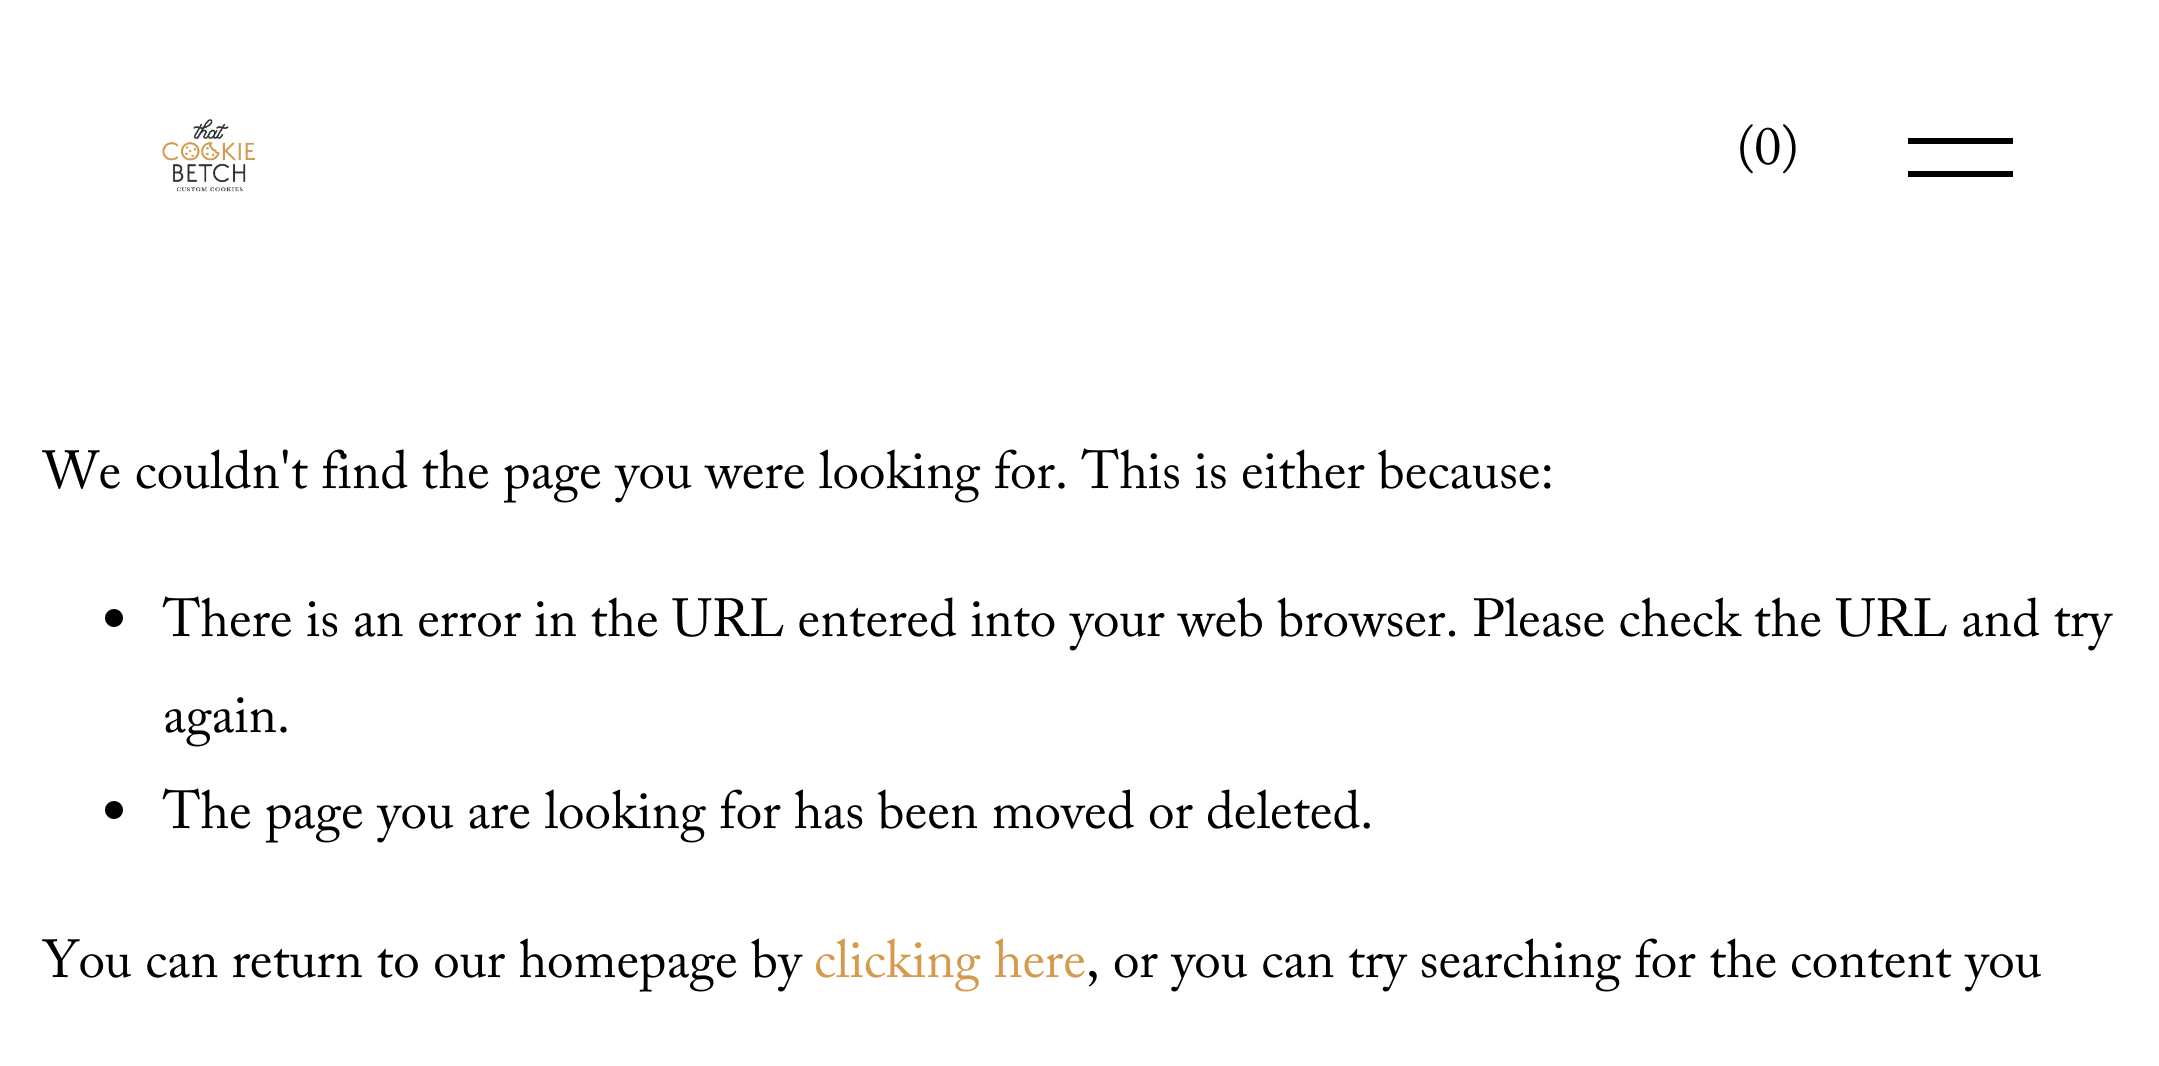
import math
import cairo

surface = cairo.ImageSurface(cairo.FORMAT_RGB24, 2159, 1066)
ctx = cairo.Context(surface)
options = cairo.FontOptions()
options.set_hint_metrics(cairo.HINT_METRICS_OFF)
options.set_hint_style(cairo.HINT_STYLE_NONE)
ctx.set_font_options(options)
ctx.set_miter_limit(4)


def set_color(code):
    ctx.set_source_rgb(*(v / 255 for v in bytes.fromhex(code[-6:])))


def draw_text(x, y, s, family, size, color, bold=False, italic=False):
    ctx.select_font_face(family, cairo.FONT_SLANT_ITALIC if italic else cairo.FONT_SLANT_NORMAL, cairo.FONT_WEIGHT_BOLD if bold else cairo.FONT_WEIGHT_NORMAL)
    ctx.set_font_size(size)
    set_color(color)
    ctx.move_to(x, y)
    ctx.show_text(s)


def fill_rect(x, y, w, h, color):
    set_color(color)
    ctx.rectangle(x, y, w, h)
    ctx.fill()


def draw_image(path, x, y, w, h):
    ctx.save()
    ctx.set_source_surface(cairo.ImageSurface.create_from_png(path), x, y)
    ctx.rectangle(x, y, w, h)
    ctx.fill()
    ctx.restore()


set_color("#ffffff")
ctx.paint()
draw_image("assets/img1.png", 162, 119, 94, 73)
draw_text(1737, 164, "(0)", "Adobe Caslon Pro", 53.2, "#000000")
fill_rect(1908, 138, 105, 6, "#000000")
fill_rect(1908, 171, 105, 6, "#000000")
draw_text(43, 488, "We couldn't find the page you were looking for. This is either because:", "Adobe Caslon Pro", 53.2, "#000000")
ctx.new_path()
ctx.arc(114, 618, 9, 0, 2 * math.pi)
ctx.fill()
draw_text(163, 636, "There is an error in the URL entered into your web browser. Please check the URL and try", "Adobe Caslon Pro", 53.2, "#000000")
draw_text(163, 732, "again.", "Adobe Caslon Pro", 53.2, "#000000")
ctx.new_path()
ctx.arc(114, 810, 9, 0, 2 * math.pi)
ctx.fill()
draw_text(163, 828, "The page you are looking for has been moved or deleted.", "Adobe Caslon Pro", 53.2, "#000000")
draw_text(43, 977, "You can return to our homepage by", "Adobe Caslon Pro", 53.2, "#000000")
draw_text(814, 977, "clicking here", "Adobe Caslon Pro", 53.2, "#d59a4c")
draw_text(1086, 977, ", or you can try searching for the", "Adobe Caslon Pro", 53.2, "#000000")
draw_text(1790, 977, "content you", "Adobe Caslon Pro", 53.2, "#000000")
surface.write_to_png("output.png")
